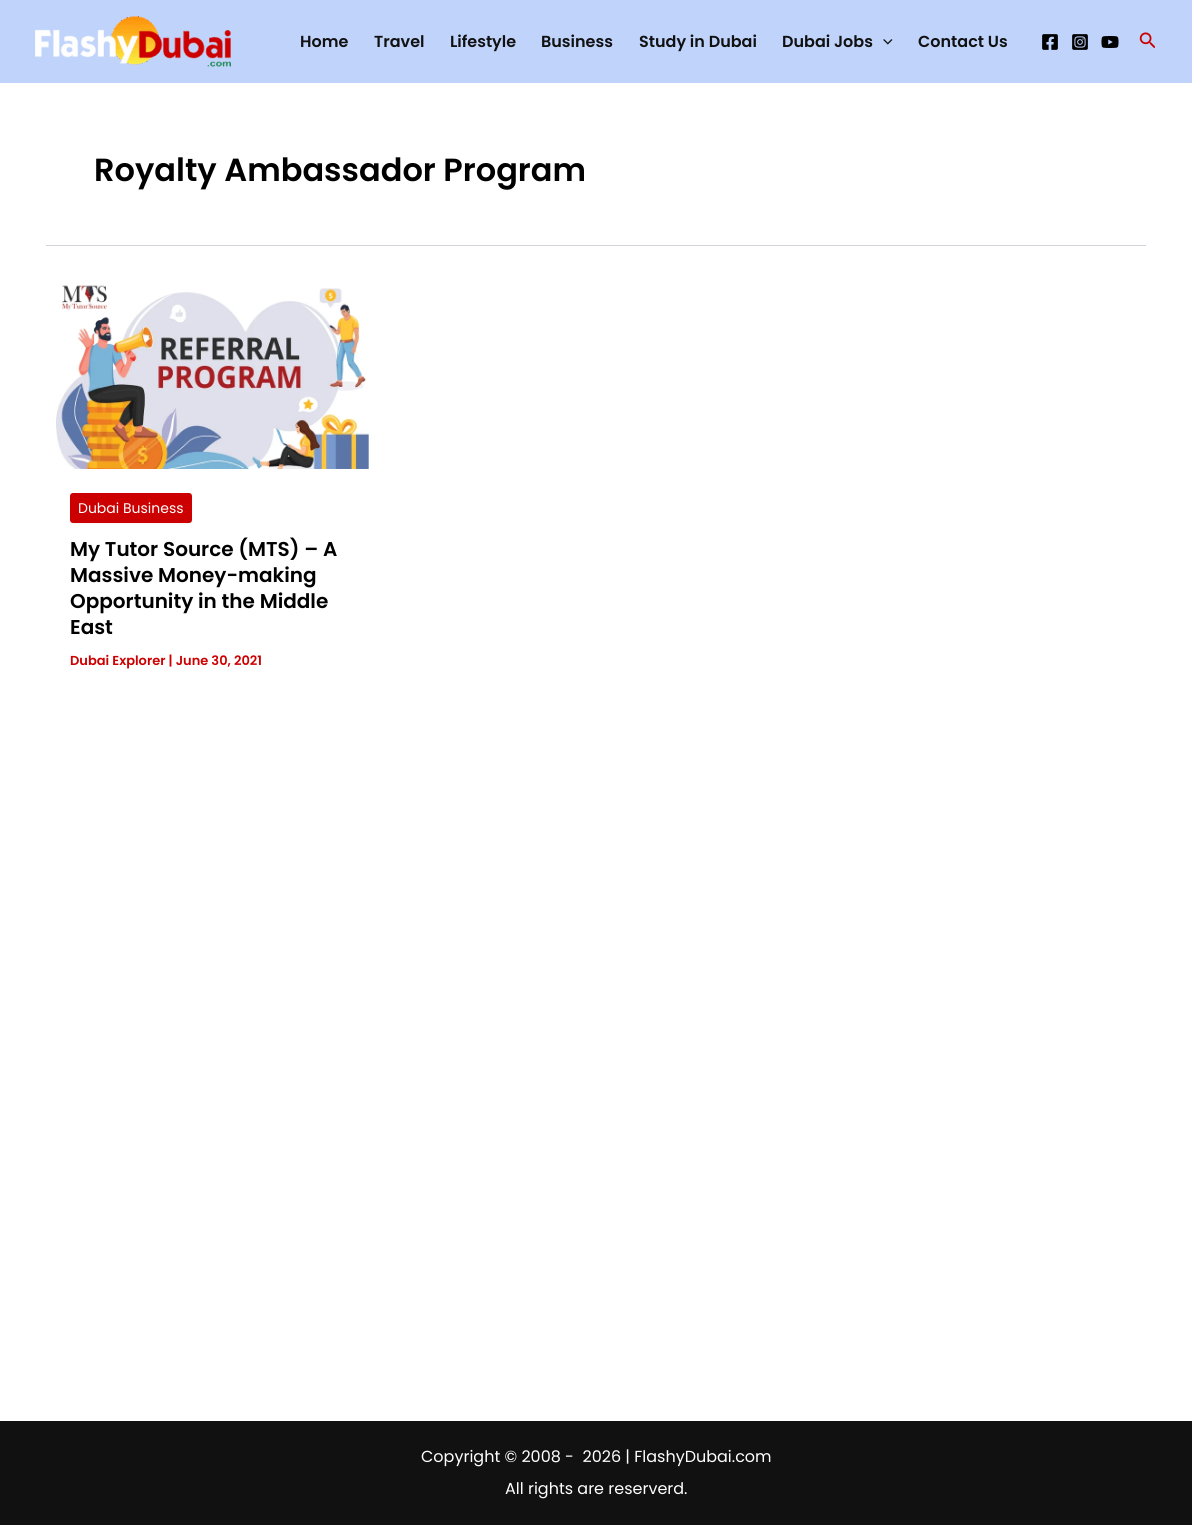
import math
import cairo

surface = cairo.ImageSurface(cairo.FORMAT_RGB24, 1192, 1525)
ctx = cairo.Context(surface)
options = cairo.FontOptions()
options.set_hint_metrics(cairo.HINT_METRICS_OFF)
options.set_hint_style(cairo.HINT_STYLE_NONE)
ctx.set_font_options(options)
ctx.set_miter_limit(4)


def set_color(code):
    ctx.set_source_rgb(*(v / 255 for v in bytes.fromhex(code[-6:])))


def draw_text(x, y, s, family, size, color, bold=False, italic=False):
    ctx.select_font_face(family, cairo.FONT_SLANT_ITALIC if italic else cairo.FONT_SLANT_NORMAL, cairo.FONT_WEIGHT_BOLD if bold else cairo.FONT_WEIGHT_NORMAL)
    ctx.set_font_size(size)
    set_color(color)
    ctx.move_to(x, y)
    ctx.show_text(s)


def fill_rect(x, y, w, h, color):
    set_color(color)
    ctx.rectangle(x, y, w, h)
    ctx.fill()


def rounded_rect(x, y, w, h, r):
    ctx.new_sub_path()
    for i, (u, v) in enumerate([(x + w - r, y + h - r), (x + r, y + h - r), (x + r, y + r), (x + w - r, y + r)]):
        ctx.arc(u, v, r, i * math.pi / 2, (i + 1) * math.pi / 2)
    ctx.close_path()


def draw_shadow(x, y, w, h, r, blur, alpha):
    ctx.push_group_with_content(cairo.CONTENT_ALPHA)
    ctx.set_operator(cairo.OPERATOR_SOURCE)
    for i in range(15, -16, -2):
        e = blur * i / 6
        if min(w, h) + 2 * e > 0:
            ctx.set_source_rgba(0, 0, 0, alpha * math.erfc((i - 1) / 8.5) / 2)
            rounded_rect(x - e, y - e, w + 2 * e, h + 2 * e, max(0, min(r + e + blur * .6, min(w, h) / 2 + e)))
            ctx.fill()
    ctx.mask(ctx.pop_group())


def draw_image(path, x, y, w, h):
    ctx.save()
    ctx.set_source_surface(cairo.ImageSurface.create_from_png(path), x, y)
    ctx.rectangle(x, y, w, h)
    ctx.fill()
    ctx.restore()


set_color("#ffffff")
ctx.paint()
fill_rect(0, 0, 1192, 83, "#c0d3fb")
draw_image("assets/img1.png", 35, 16, 196, 51)
draw_text(300, 47, "Home", "Poppins SemiBold", 16, "#111111")
draw_text(374, 47, "Travel", "Poppins SemiBold", 16, "#111111")
draw_text(450, 47, "Lifestyle", "Poppins SemiBold", 16, "#111111")
draw_text(541, 47, "Business", "Poppins SemiBold", 16, "#111111")
draw_text(639, 47, "Study in Dubai", "Poppins SemiBold", 16, "#111111")
draw_text(782, 47, "Dubai Jobs", "Poppins SemiBold", 16, "#111111")
draw_image("assets/img2.png", 883, 39, 10, 6)
draw_text(918, 47, "Contact Us", "Poppins SemiBold", 16, "#111111")
draw_image("assets/img3.png", 1042, 34, 16, 16)
draw_image("assets/img4.png", 1072, 34, 16, 16)
draw_image("assets/img5.png", 1101, 36, 18, 12)
draw_image("assets/img6.png", 1139, 32, 16, 17)
fill_rect(46, 245, 1100, 1, "#d1d5db")
draw_text(94, 181, "Royalty Ambassador Program", "Poppins SemiBold", 32, "#000000")
draw_image("assets/img7.png", 56, 285, 313, 184)
set_color("#000000")
draw_shadow(70, 494, 122, 30, 3, 1, 0.05)
set_color("#cc0000")
rounded_rect(70, 493, 122, 30, 3)
ctx.fill()
draw_text(78, 513, "Dubai Business", "Poppins", 14, "#ffffff")
draw_text(70, 556, "My Tutor Source (MTS) – A", "Poppins SemiBold", 20, "#000000")
draw_text(70, 582, "Massive Money-making", "Poppins SemiBold", 20, "#000000")
draw_text(70, 608, "Opportunity in the Middle", "Poppins SemiBold", 20, "#000000")
draw_text(70, 634, "East", "Poppins SemiBold", 20, "#000000")
draw_text(70, 665, "Dubai Explorer | June 30, 2021", "Poppins SemiBold", 13, "#cc0000")
fill_rect(0, 1421, 1192, 104, "#111111")
draw_text(421, 1462, "Copyright © 2008 -  2026 | FlashyDubai.com", "Poppins", 16, "#ffffff")
draw_text(505, 1494, "All rights are reserverd.", "Poppins", 16, "#ffffff")
surface.write_to_png("output.png")
